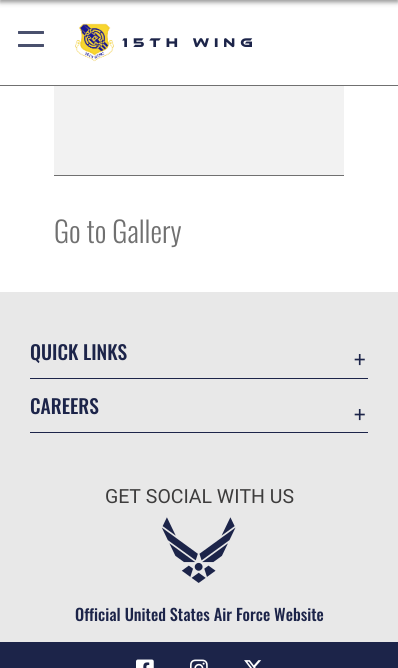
import math
import cairo

surface = cairo.ImageSurface(cairo.FORMAT_RGB24, 398, 668)
ctx = cairo.Context(surface)
options = cairo.FontOptions()
options.set_hint_metrics(cairo.HINT_METRICS_OFF)
options.set_hint_style(cairo.HINT_STYLE_NONE)
ctx.set_font_options(options)
ctx.set_miter_limit(4)


def set_color(code):
    ctx.set_source_rgb(*(v / 255 for v in bytes.fromhex(code[-6:])))


def draw_text(x, y, s, family, size, color, bold=False, italic=False):
    ctx.select_font_face(family, cairo.FONT_SLANT_ITALIC if italic else cairo.FONT_SLANT_NORMAL, cairo.FONT_WEIGHT_BOLD if bold else cairo.FONT_WEIGHT_NORMAL)
    ctx.set_font_size(size)
    set_color(color)
    ctx.move_to(x, y)
    ctx.show_text(s)


def draw_spaced(x, y, s, letter, word):
    ctx.move_to(x, y)
    for ch in s:
        ctx.show_text(ch)
        ctx.rel_move_to(letter + word * (ch == ' '), 0)


def fill_rect(x, y, w, h, color):
    set_color(color)
    ctx.rectangle(x, y, w, h)
    ctx.fill()


def rounded_rect(x, y, w, h, r):
    ctx.new_sub_path()
    for i, (u, v) in enumerate([(x + w - r, y + h - r), (x + r, y + h - r), (x + r, y + r), (x + w - r, y + r)]):
        ctx.arc(u, v, r, i * math.pi / 2, (i + 1) * math.pi / 2)
    ctx.close_path()


def draw_shadow(x, y, w, h, r, blur, alpha):
    ctx.push_group_with_content(cairo.CONTENT_ALPHA)
    ctx.set_operator(cairo.OPERATOR_SOURCE)
    for i in range(15, -16, -2):
        e = blur * i / 6
        if min(w, h) + 2 * e > 0:
            ctx.set_source_rgba(0, 0, 0, alpha * math.erfc((i - 1) / 8.5) / 2)
            rounded_rect(x - e, y - e, w + 2 * e, h + 2 * e, max(0, min(r + e + blur * .6, min(w, h) / 2 + e)))
            ctx.fill()
    ctx.mask(ctx.pop_group())


def draw_image(path, x, y, w, h):
    ctx.save()
    ctx.set_source_surface(cairo.ImageSurface.create_from_png(path), x, y)
    ctx.rectangle(x, y, w, h)
    ctx.fill()
    ctx.restore()


set_color("#ffffff")
ctx.paint()
set_color("#191919")
draw_shadow(0, -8, 398, 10, 0, 2.5, 0.5)
fill_rect(0, 85, 398, 1, "#707070")
set_color("#49506d")
rounded_rect(18, 31, 26, 3, 0.5)
ctx.fill()
rounded_rect(18, 44, 26, 3, 0.5)
ctx.fill()
draw_image("assets/img1.png", 75, 23, 39, 39)
ctx.select_font_face("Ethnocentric")
ctx.set_font_size(13)
set_color("#1c2449")
draw_spaced(122, 47, "15th Wing", 4.9, 0)
fill_rect(54, 86, 290, 89, "#f2f2f2")
fill_rect(54, 175, 290, 1, "#707070")
draw_text(54, 243, "Go to Gallery", "Oswald Light", 29, "#707070")
fill_rect(0, 292, 398, 350, "#e8e8e8")
fill_rect(30, 378, 338, 1, "#1c2449")
draw_text(30, 360, "QUICK LINKS", "Oswald Medium", 19.5, "#1c2449")
draw_text(354, 372, "+", "Oswald Light", 30, "#1c2449")
fill_rect(30, 432, 338, 1, "#1c2449")
draw_text(30, 414, "CAREERS", "Oswald Medium", 19.5, "#1c2449")
draw_text(354, 427, "+", "Oswald Light", 30, "#1c2449")
draw_text(105, 503, "GET SOCIAL WITH US", "Roboto", 19.5, "#3d3c3c")
draw_image("assets/img2.png", 161, 517, 75, 66)
draw_text(75, 621, "Official United States Air Force Website", "Oswald Medium", 16.25, "#1c2449")
fill_rect(0, 642, 398, 26, "#1c2449")
draw_image("assets/img3.png", 136, 659, 18, 9)
draw_image("assets/img4.png", 190, 659, 18, 9)
draw_image("assets/img5.png", 244, 660, 18, 8)
surface.write_to_png("output.png")
